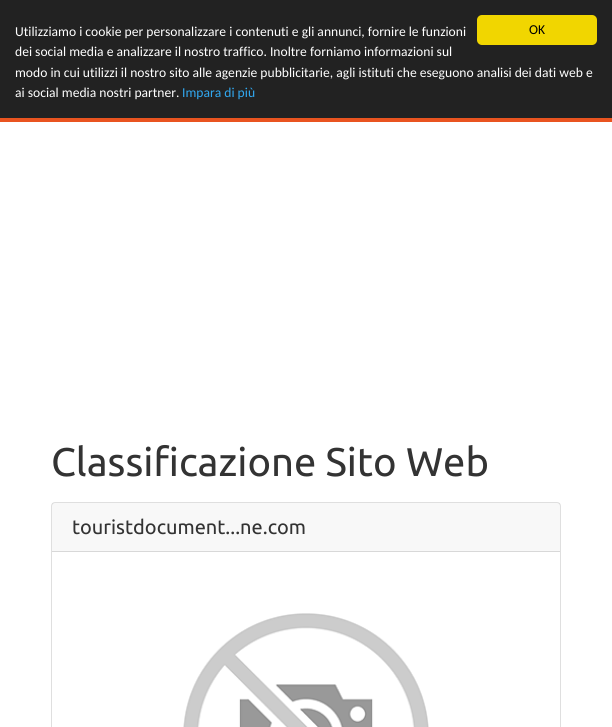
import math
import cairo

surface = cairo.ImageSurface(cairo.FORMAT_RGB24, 612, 727)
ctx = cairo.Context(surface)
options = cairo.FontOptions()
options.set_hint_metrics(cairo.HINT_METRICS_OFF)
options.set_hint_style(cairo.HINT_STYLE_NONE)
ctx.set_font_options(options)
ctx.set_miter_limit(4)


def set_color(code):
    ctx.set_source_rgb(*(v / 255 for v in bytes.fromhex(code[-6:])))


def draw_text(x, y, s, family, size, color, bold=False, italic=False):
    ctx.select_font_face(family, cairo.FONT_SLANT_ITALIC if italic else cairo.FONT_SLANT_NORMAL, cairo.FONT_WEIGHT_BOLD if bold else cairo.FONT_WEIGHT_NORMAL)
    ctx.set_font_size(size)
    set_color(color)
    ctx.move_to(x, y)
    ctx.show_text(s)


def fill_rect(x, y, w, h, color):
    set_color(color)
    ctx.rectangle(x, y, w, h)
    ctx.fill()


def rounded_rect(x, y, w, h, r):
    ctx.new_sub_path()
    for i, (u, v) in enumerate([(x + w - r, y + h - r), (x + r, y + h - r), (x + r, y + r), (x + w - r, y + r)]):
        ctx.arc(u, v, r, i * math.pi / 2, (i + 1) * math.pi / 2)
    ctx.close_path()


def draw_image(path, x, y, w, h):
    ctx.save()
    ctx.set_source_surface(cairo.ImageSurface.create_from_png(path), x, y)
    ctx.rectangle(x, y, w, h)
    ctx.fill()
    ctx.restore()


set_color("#ffffff")
ctx.paint()
fill_rect(0, 0, 612, 118, "#222222")
set_color("#f1d600")
rounded_rect(477, 15, 120, 30, 5)
ctx.fill()
draw_text(529, 34, "OK", "Carlito", 13.6, "#000000")
draw_text(15, 36, "Utilizziamo i cookie per personalizzare i contenuti e gli annunci, fornire le funzioni", "Carlito", 13.6, "#ffffff")
draw_text(15, 56, "dei social media e analizzare il nostro traffico. Inoltre forniamo informazioni sul", "Carlito", 13.6, "#ffffff")
draw_text(15, 77, "modo in cui utilizzi il nostro sito alle agenzie pubblicitarie, agli istituti che eseguono analisi dei dati web e", "Carlito", 13.6, "#ffffff")
draw_text(15, 97, "ai social media nostri partner.", "Carlito", 13.6, "#ffffff")
draw_text(182, 97, "Impara di più", "Carlito", 13.6, "#31a8f0")
fill_rect(0, 118, 612, 4, "#e95420")
draw_text(51, 476, "Classificazione Sito Web", "Ubuntu", 40, "#333333")
rounded_rect(51.5, 502.5, 509, 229, 3.5)
set_color("#dfdfdf")
ctx.set_line_width(1)
ctx.stroke()
ctx.set_source_rgba(0, 0, 0, 0.03)
ctx.rectangle(52, 503, 508, 48)
ctx.fill()
fill_rect(52, 551, 508, 1, "#d8d8d8")
draw_text(72, 534, "touristdocument...ne.com", "Ubuntu", 20, "#333333")
draw_image("assets/img1.png", 183, 613, 246, 114)
surface.write_to_png("output.png")
